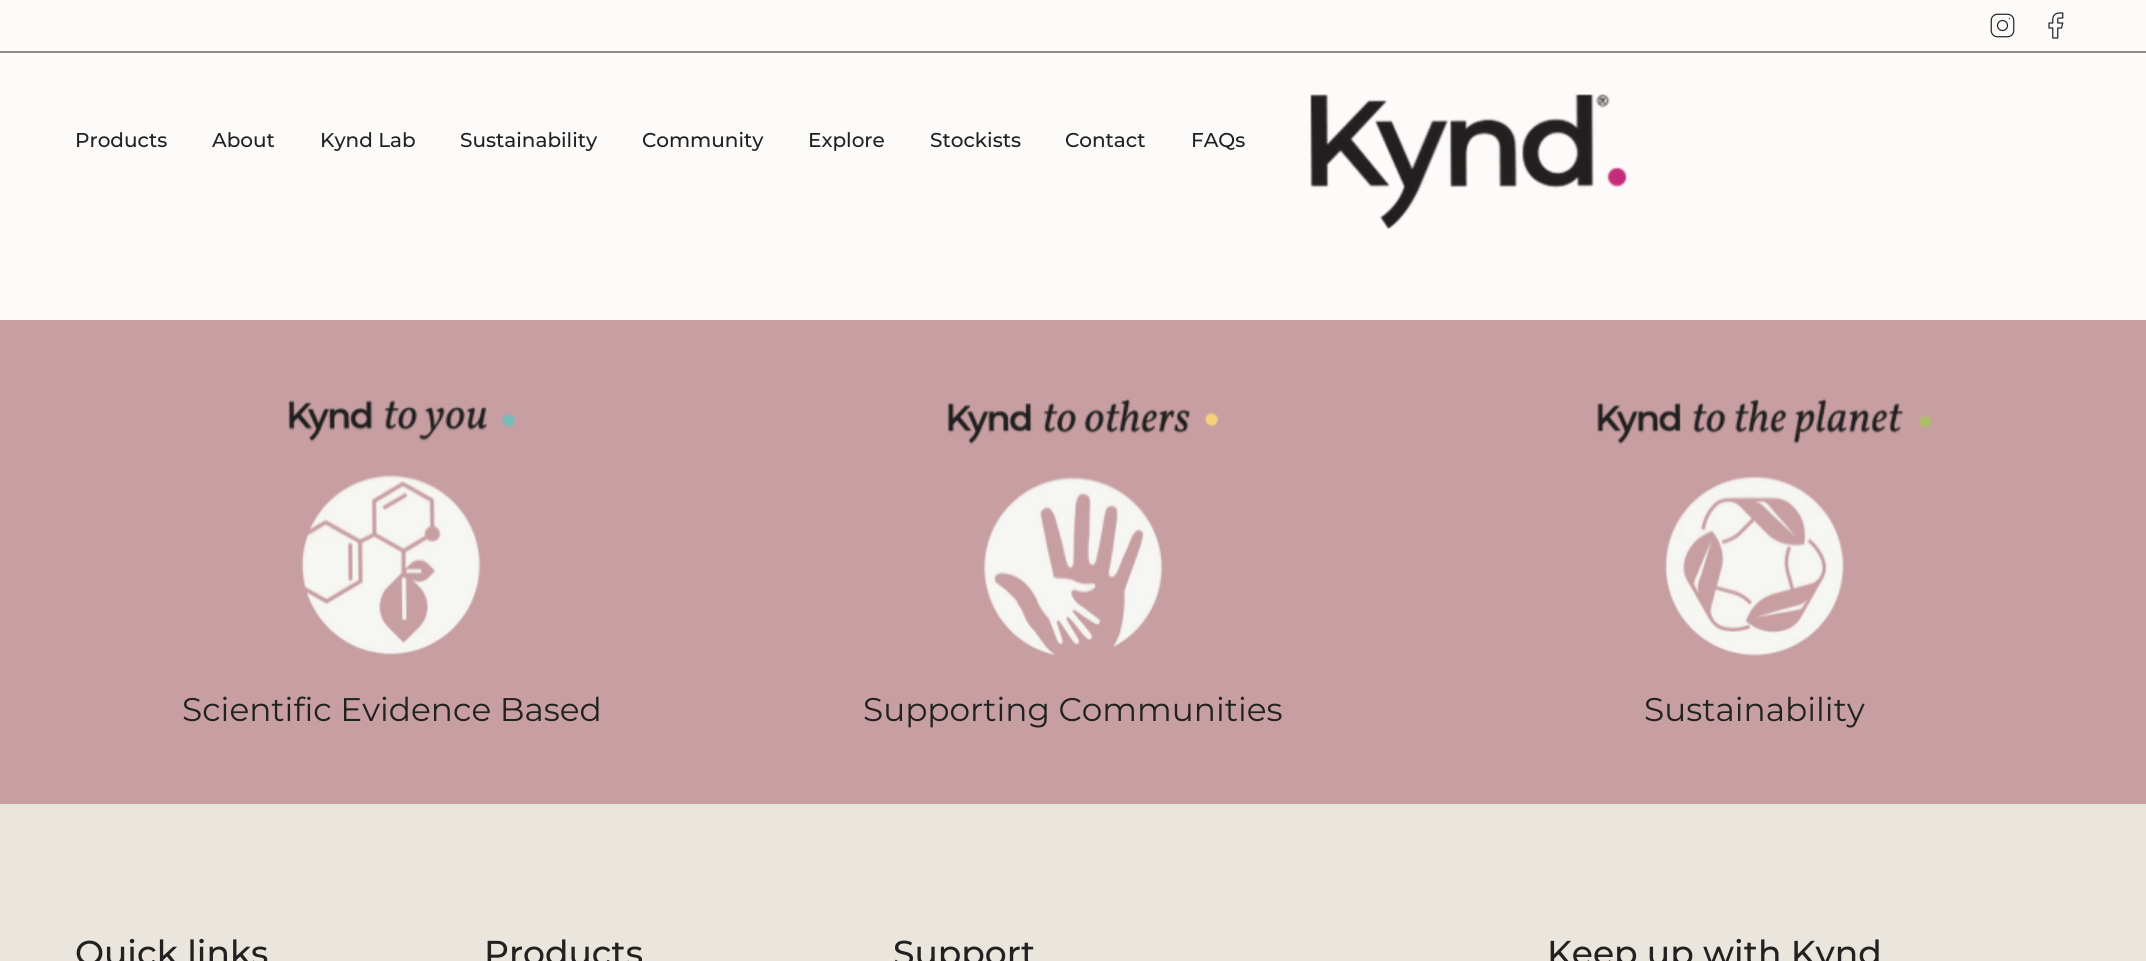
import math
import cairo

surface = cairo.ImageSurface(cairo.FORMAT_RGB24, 2146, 961)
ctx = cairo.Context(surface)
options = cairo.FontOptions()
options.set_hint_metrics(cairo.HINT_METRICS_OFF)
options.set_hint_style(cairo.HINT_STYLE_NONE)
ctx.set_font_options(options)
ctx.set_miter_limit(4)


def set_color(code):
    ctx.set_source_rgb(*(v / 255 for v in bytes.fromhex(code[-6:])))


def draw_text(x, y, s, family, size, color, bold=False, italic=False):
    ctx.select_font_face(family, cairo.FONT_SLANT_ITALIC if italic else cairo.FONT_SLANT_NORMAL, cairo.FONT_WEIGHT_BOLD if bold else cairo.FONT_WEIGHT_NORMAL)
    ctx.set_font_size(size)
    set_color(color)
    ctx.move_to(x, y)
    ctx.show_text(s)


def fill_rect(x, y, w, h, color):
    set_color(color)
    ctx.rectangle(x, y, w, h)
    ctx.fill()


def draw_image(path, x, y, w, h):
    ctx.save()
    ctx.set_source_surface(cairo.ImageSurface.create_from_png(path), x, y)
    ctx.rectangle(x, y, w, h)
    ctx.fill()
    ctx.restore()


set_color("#fcfbf9")
ctx.paint()
draw_image("assets/img1.png", 1990, 13, 25, 25)
draw_image("assets/img2.png", 2048, 12, 16, 27)
fill_rect(0, 51, 2146, 2, "#8f8e8d")
draw_text(75, 147, "Products", "Montserrat Medium", 20, "#212121")
draw_text(212, 147, "About", "Montserrat Medium", 20, "#212121")
draw_text(320, 147, "Kynd Lab", "Montserrat Medium", 20, "#212121")
draw_text(460, 147, "Sustainability", "Montserrat Medium", 20, "#212121")
draw_text(642, 147, "Community", "Montserrat Medium", 20, "#212121")
draw_text(808, 147, "Explore", "Montserrat Medium", 20, "#212121")
draw_text(930, 147, "Stockists", "Montserrat Medium", 20, "#212121")
draw_text(1065, 147, "Contact", "Montserrat Medium", 20, "#212121")
draw_text(1191, 147, "FAQs", "Montserrat Medium", 20, "#212121")
draw_image("assets/img3.png", 1310, 94, 317, 135)
fill_rect(0, 320, 2146, 484, "#c79ea2")
draw_image("assets/img4.png", 288, 400, 227, 255)
draw_text(182, 721, "Scientific Evidence Based", "Montserrat", 32.75, "#212121")
draw_image("assets/img5.png", 947, 398, 272, 258)
draw_text(863, 721, "Supporting Communities", "Montserrat", 32.75, "#212121")
draw_image("assets/img6.png", 1597, 398, 335, 258)
draw_text(1644, 721, "Sustainability", "Montserrat", 32.75, "#212121")
fill_rect(0, 804, 2146, 157, "#eae6dd")
draw_text(75, 965, "Quick links", "Montserrat Medium", 34.5, "#212121")
draw_text(484, 965, "Products", "Montserrat Medium", 34.5, "#212121")
draw_text(893, 965, "Support", "Montserrat Medium", 34.5, "#212121")
draw_text(1547, 965, "Keep up with Kynd", "Montserrat Medium", 34.5, "#212121")
surface.write_to_png("output.png")
